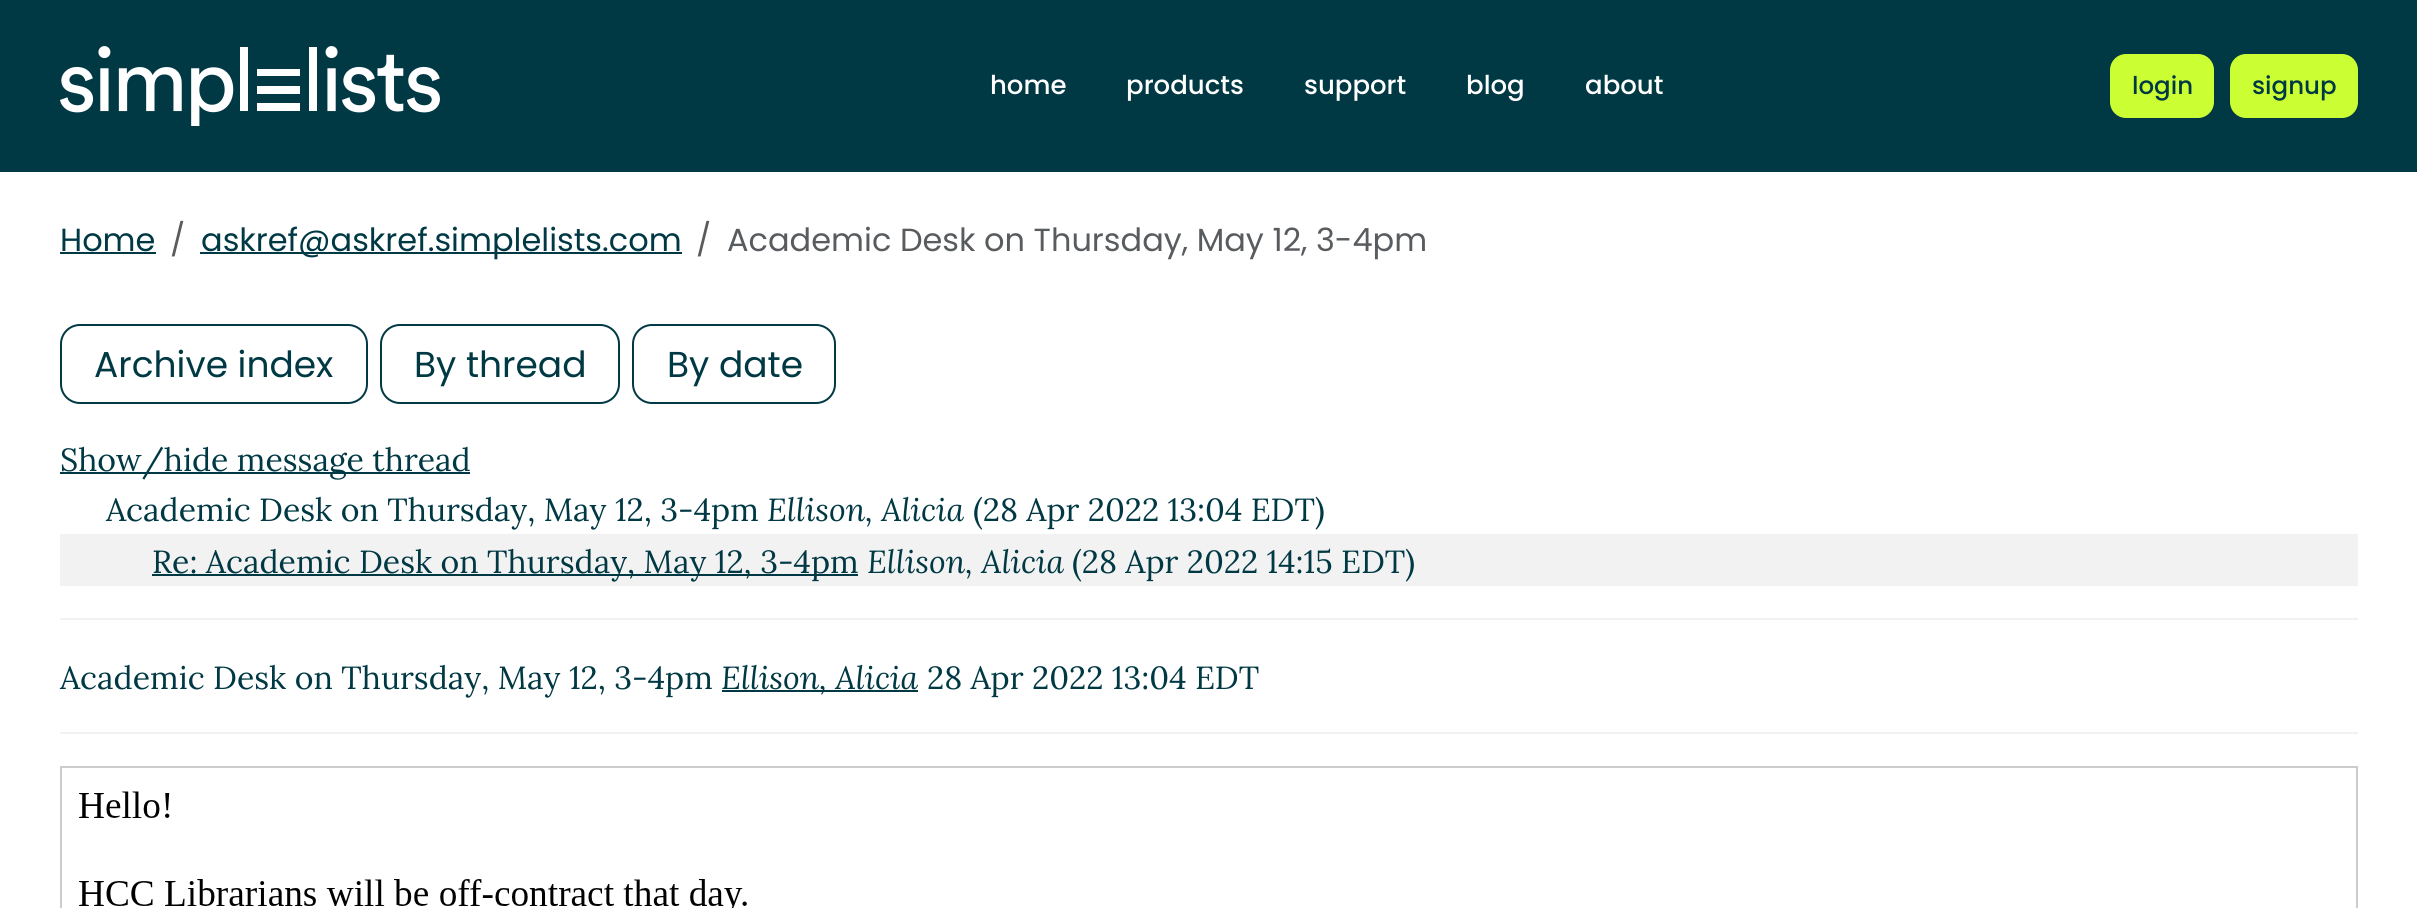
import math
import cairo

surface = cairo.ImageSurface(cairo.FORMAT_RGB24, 2417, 908)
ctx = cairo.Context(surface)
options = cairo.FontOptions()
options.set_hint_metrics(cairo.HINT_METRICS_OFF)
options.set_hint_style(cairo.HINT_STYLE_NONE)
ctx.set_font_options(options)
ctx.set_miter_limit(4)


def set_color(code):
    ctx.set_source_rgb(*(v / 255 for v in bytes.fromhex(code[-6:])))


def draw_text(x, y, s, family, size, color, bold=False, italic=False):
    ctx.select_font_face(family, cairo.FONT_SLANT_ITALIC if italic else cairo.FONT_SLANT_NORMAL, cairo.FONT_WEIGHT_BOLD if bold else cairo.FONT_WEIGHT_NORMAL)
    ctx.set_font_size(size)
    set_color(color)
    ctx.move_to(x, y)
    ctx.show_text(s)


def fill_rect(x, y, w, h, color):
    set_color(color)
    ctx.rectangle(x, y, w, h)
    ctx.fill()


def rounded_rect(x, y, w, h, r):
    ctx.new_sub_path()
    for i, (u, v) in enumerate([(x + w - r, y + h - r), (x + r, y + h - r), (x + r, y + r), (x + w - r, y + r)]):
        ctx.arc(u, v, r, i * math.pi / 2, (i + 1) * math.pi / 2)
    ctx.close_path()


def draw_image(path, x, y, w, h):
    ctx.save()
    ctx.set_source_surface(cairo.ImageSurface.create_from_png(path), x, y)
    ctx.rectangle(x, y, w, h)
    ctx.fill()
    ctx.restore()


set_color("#ffffff")
ctx.paint()
fill_rect(0, 0, 2417, 172, "#003944")
draw_image("assets/img1.png", 60, 46, 380, 80)
draw_text(990, 94, "home", "Poppins Medium", 26, "#ffffff")
draw_text(1126, 94, "products", "Poppins Medium", 26, "#ffffff")
draw_text(1304, 94, "support", "Poppins Medium", 26, "#ffffff")
draw_text(1466, 94, "blog", "Poppins Medium", 26, "#ffffff")
draw_text(1585, 94, "about", "Poppins Medium", 26, "#ffffff")
set_color("#ccff33")
rounded_rect(2111, 55, 102, 62, 15)
ctx.fill_preserve()
ctx.stroke()
draw_text(2132, 94, "login", "Poppins Medium", 24.5, "#003944")
set_color("#ccff33")
rounded_rect(2231, 55, 126, 62, 15)
ctx.fill_preserve()
ctx.stroke()
draw_text(2252, 94, "signup", "Poppins Medium", 24.5, "#003944")
draw_text(60, 251, "Home", "Poppins", 32, "#003944")
fill_rect(60, 252, 96, 2, "#003944")
draw_text(170, 251, "/", "Poppins", 32, "#595c5f")
fill_rect(200, 252, 482, 2, "#003944")
draw_text(201, 251, "askref@askref.simplelists.com", "Poppins", 32, "#003944")
draw_text(696, 251, "/", "Poppins", 32, "#595c5f")
draw_text(727, 251, "Academic Desk on Thursday, May 12, 3-4pm", "Poppins", 32, "#595c5f")
rounded_rect(61, 325, 306, 78, 19)
set_color("#003944")
ctx.stroke()
draw_text(94, 377, "Archive index", "Poppins", 36, "#003944")
rounded_rect(381, 325, 238, 78, 19)
ctx.stroke()
draw_text(414, 377, "By thread", "Poppins", 36, "#003944")
rounded_rect(633, 325, 202, 78, 19)
ctx.stroke()
draw_text(667, 377, "By date", "Poppins", 36, "#003944")
fill_rect(60, 472, 410, 2, "#003944")
draw_text(60, 471, "Show/hide message thread", "Lora", 32, "#003944")
draw_text(106, 521, "Academic Desk on Thursday, May 12, 3-4pm", "Lora", 32, "#003944")
draw_text(767, 521, "Ellison, Alicia", "Lora", 32, "#003944", italic=True)
draw_text(973, 521, "(28 Apr 2022 13:04 EDT)", "Lora", 32, "#003944")
fill_rect(60, 534, 2298, 52, "#f2f2f2")
fill_rect(152, 574, 706, 2, "#003944")
draw_text(152, 573, "Re: Academic Desk on Thursday, May 12, 3-4pm", "Lora", 32, "#003944")
draw_text(867, 573, "Ellison, Alicia", "Lora", 32, "#003944", italic=True)
draw_text(1072, 573, "(28 Apr 2022 14:15 EDT)", "Lora", 32, "#003944")
fill_rect(60, 618, 2298, 2, "#f2f2f2")
draw_text(60, 689, "Academic Desk on Thursday, May 12, 3-4pm", "Lora", 32, "#003944")
fill_rect(722, 690, 196, 2, "#003944")
draw_text(721, 689, "Ellison, Alicia", "Lora", 32, "#003944", italic=True)
draw_text(927, 689, "28 Apr 2022 13:04 EDT", "Lora", 32, "#003944")
fill_rect(60, 732, 2298, 2, "#f2f2f2")
ctx.rectangle(61, 767, 2296, 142)
set_color("#cccccc")
ctx.stroke()
draw_image("assets/img2.png", 79, 791, 668, 117)
surface.write_to_png("output.png")
